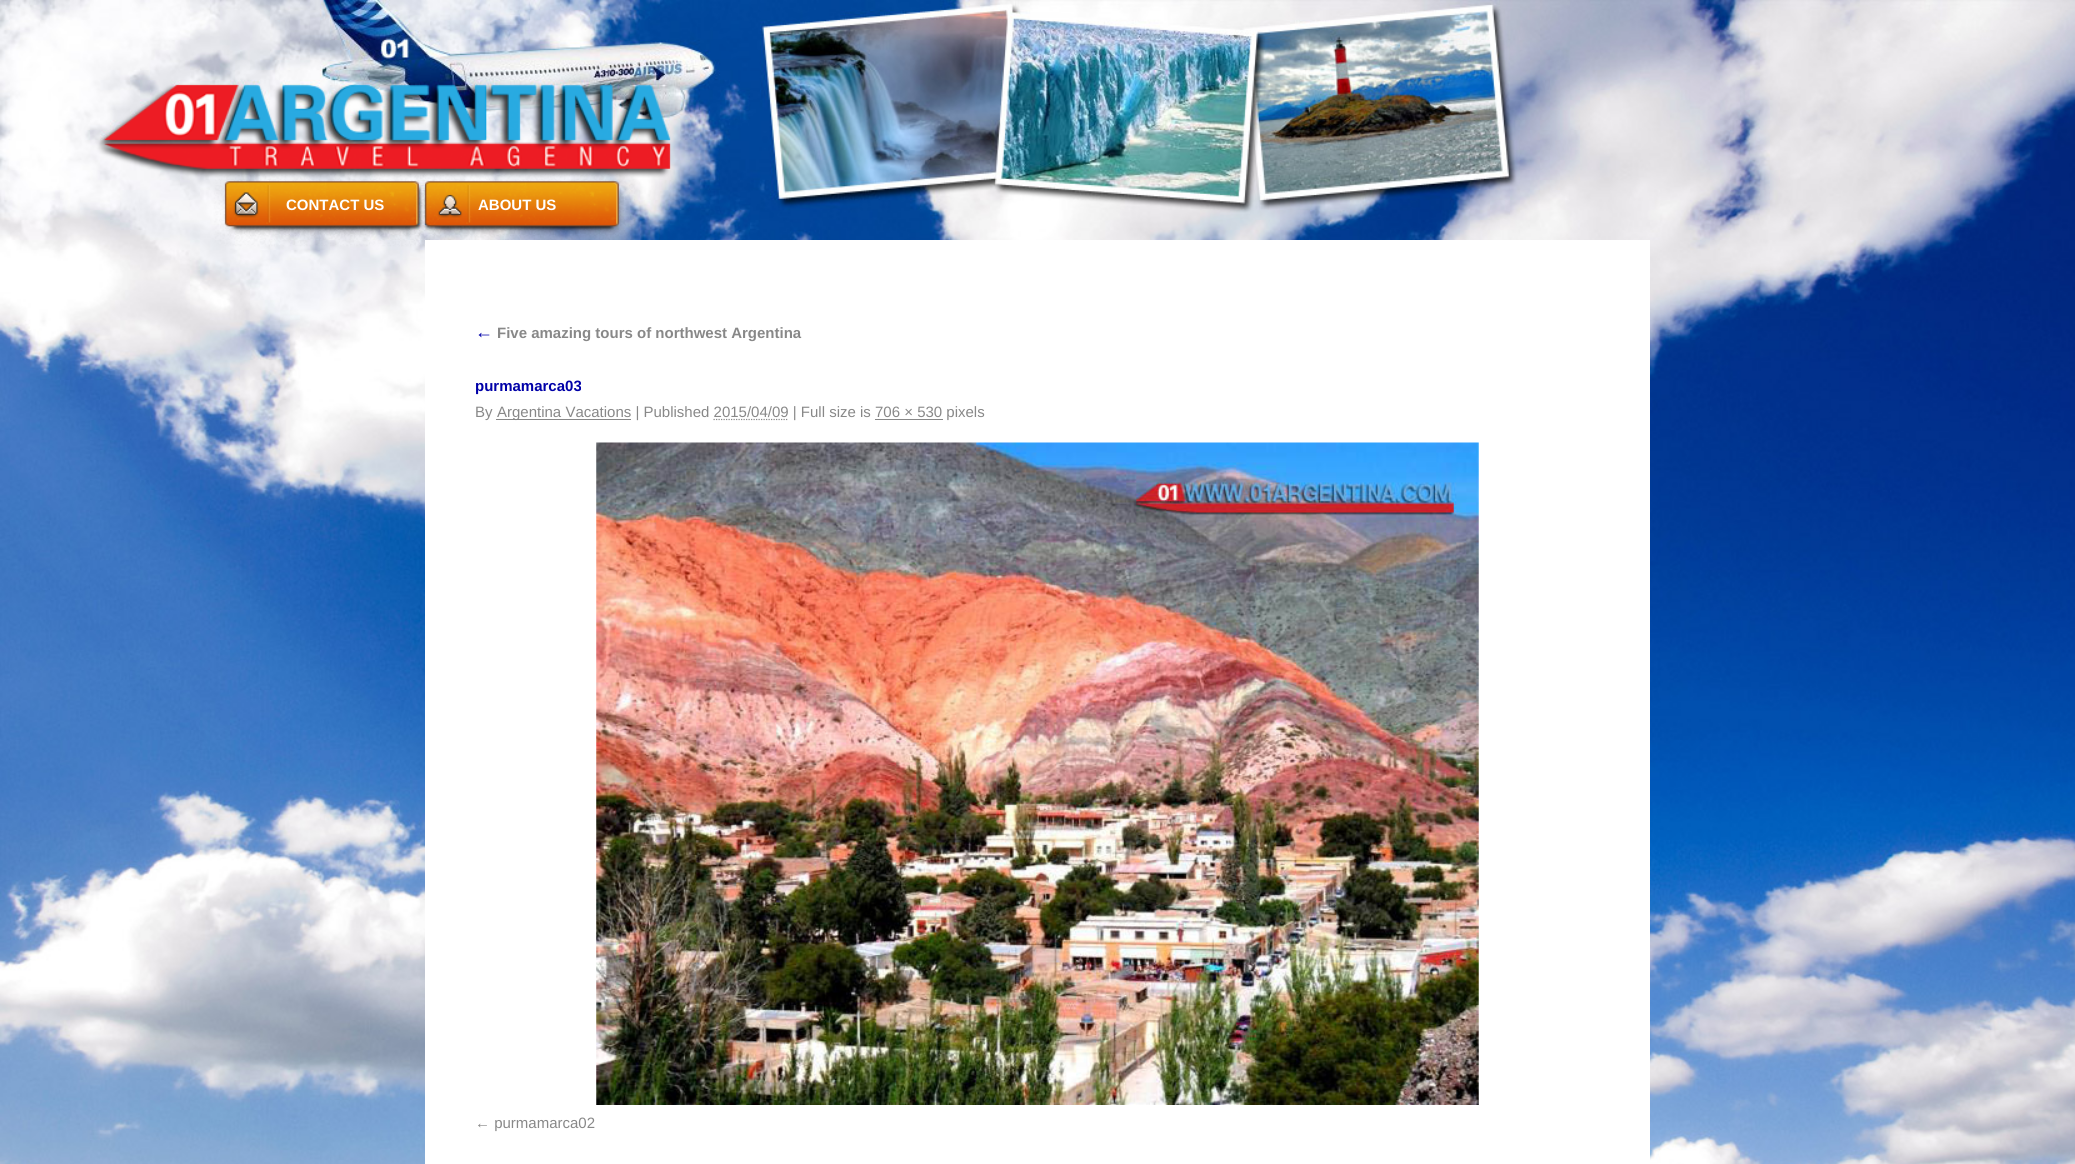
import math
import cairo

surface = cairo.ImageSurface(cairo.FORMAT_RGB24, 2075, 1164)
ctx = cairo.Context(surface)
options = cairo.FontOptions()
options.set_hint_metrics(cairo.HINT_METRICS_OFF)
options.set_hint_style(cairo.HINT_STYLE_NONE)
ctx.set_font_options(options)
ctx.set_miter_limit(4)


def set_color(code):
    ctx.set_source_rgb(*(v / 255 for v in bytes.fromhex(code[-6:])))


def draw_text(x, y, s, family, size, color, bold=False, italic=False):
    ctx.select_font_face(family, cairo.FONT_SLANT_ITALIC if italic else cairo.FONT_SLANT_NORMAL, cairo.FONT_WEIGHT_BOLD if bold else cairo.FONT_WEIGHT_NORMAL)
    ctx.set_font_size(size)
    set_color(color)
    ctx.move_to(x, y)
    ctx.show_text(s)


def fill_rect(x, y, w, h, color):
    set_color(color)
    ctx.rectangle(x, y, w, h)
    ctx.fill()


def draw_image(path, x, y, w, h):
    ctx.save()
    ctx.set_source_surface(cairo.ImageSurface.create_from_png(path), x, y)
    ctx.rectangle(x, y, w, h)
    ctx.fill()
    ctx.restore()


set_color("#ffffff")
ctx.paint()
draw_image("assets/img1.png", 0, 0, 2075, 1164)
draw_text(286, 210, "CONTACT US", "Liberation Sans", 15, "#ffffff", bold=True)
draw_text(478, 210, "ABOUT US", "Liberation Sans", 15, "#ffffff", bold=True)
fill_rect(425, 240, 1225, 924, "#ffffff")
draw_text(475, 338, "←", "Liberation Sans", 18, "#0000a8", italic=True)
draw_text(497, 338, "Five amazing tours of northwest Argentina", "Liberation Sans", 15, "#888888", bold=True)
draw_text(475, 391, "purmamarca03", "Liberation Sans", 15, "#0000a8", bold=True)
draw_text(475, 417, "By", "Liberation Sans", 15, "#888888")
fill_rect(496, 419, 135, 1, "#888888")
draw_text(497, 417, "Argentina Vacations | Published 2015/04/09 | Full size is 706 × 530 pixels", "Liberation Sans", 15, "#888888")
ctx.new_path()
ctx.move_to(713.5, 419.5)
ctx.line_to(788.5, 419.5)
ctx.set_line_width(1.2)
ctx.set_dash([1.25, 1.25])
ctx.stroke()
fill_rect(875, 419, 68, 1, "#888888")
draw_image("assets/img2.png", 596, 442, 883, 663)
draw_text(475, 1128, "← purmamarca02", "Liberation Sans", 15, "#888888")
surface.write_to_png("output.png")
